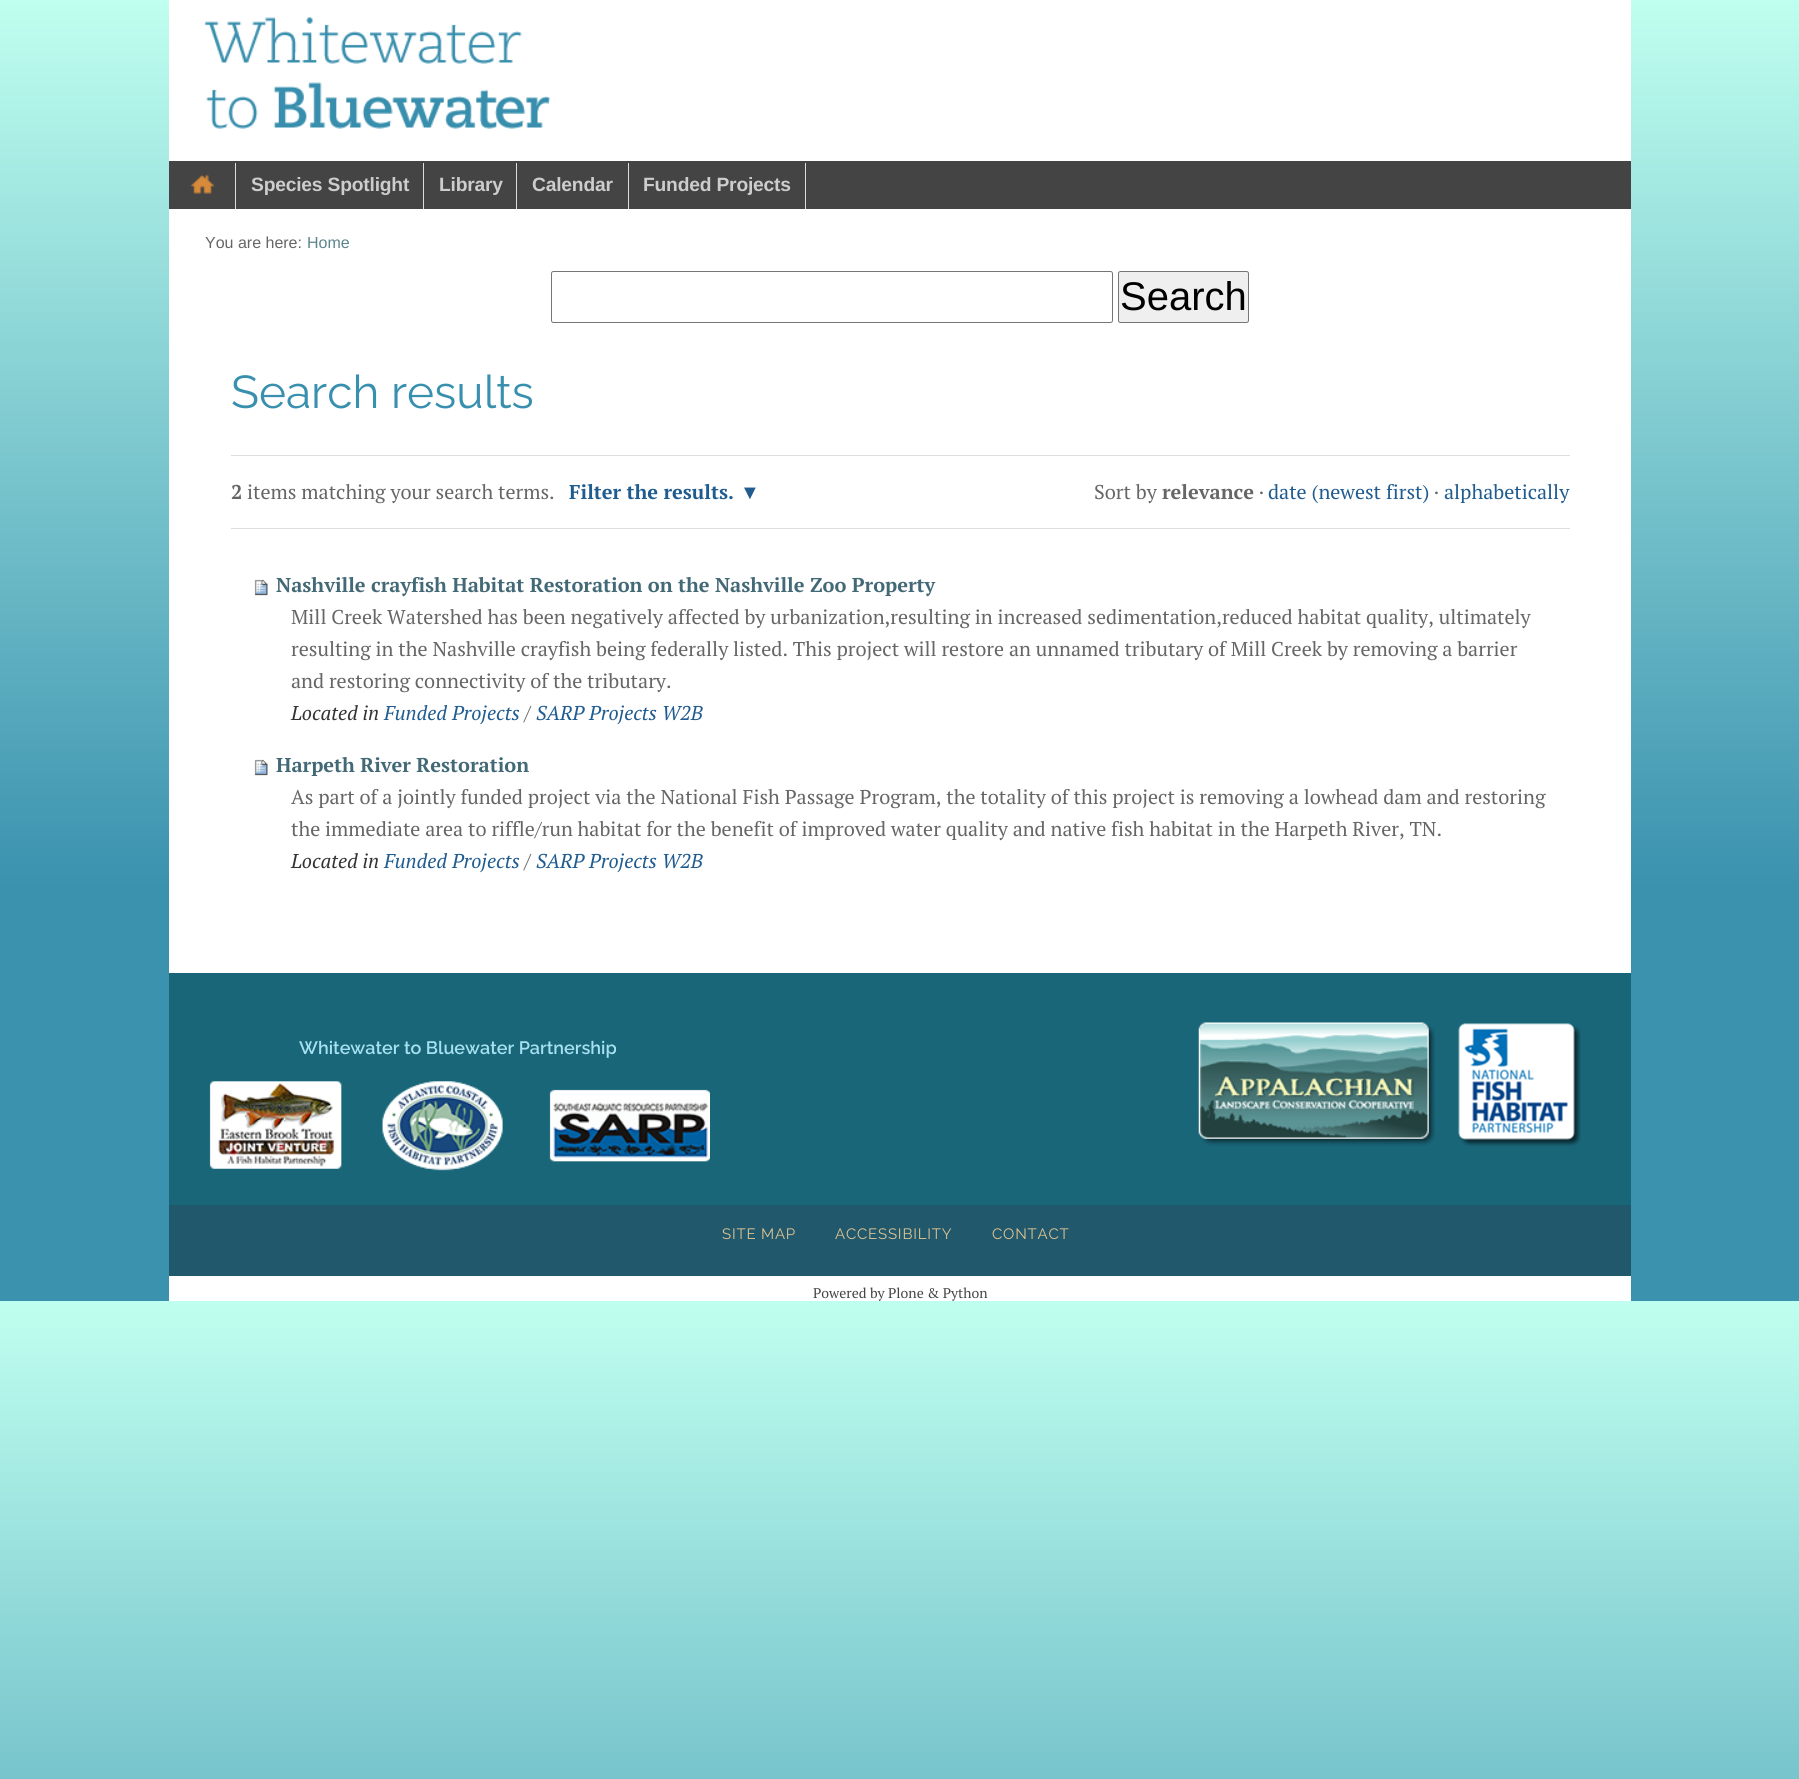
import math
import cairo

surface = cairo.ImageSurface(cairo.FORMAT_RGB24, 1799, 1779)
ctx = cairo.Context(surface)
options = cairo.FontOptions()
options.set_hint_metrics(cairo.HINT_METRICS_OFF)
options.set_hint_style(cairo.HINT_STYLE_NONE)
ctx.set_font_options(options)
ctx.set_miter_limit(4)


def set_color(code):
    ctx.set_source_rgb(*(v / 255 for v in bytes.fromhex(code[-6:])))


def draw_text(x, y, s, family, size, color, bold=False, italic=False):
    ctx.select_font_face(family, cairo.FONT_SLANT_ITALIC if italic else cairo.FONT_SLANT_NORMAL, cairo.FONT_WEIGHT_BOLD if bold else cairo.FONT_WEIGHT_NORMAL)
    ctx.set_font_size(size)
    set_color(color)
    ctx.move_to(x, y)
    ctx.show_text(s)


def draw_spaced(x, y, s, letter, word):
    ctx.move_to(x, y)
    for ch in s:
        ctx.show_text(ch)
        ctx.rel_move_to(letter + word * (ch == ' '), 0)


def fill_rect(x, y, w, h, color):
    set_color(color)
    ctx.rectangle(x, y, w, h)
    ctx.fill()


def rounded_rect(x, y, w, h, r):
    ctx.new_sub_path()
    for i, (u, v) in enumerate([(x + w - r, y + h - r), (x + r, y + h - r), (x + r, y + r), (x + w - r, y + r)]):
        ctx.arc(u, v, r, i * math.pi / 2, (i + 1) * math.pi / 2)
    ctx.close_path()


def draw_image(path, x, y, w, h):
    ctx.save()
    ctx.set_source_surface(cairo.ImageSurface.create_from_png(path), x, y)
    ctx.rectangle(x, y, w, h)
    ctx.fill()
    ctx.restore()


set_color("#ffffff")
ctx.paint()
gradient = cairo.LinearGradient(900, 1301, 900, 0)
gradient.add_color_stop_rgba(0.32, 0.231, 0.573, 0.686, 1)
gradient.add_color_stop_rgba(1, 0.749, 1, 0.937, 1)
ctx.set_source(gradient)
ctx.rectangle(0, 0, 1799, 1301)
ctx.fill()
gradient = cairo.LinearGradient(900, 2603, 900, 1301)
gradient.add_color_stop_rgba(0.32, 0.231, 0.573, 0.686, 1)
gradient.add_color_stop_rgba(1, 0.749, 1, 0.937, 1)
ctx.set_source(gradient)
ctx.rectangle(0, 1301, 1799, 478)
ctx.fill()
fill_rect(169, 209, 1462, 1092, "#ffffff")
fill_rect(169, 0, 1462, 161, "#ffffff")
draw_image("assets/img1.png", 204, 17, 347, 112)
fill_rect(169, 161, 1462, 48, "#444444")
draw_image("assets/img2.png", 191, 175, 24, 19)
fill_rect(235, 163, 1, 46, "#dddddd")
fill_rect(423, 163, 1, 46, "#dddddd")
ctx.select_font_face("Liberation Sans", cairo.FONT_SLANT_NORMAL, cairo.FONT_WEIGHT_BOLD)
ctx.set_font_size(19.25)
set_color("#cdcdcd")
draw_spaced(251, 191, "Species Spotlight", -0.2, 0)
fill_rect(516, 163, 1, 46, "#dddddd")
set_color("#cdcdcd")
draw_spaced(439, 191, "Library", -0.2, 0)
fill_rect(628, 163, 1, 46, "#dddddd")
set_color("#cdcdcd")
draw_spaced(532, 191, "Calendar", -0.2, 0)
fill_rect(805, 163, 1, 46, "#dddddd")
set_color("#cdcdcd")
draw_spaced(643, 191, "Funded Projects", -0.2, 0)
draw_text(205, 248, "You are here:", "Liberation Sans", 16, "#666666")
draw_text(307, 248, "Home", "Liberation Sans", 16, "#5d848d")
rounded_rect(551.5, 271.5, 561, 51, 2)
set_color("#767676")
ctx.set_line_width(1)
ctx.stroke()
set_color("#efefef")
rounded_rect(1118.5, 271.5, 130, 51, 2)
ctx.fill_preserve()
set_color("#767676")
ctx.stroke()
draw_text(1120, 310, "Search", "Liberation Sans", 40, "#000000")
draw_text(231, 408, "Search results", "Raleway", 46, "#3990ae")
fill_rect(231, 455, 1339, 1, "#dddddd")
fill_rect(231, 528, 1339, 1, "#dddddd")
draw_text(231, 499, "2", "PT Serif", 20, "#666666", bold=True)
draw_text(247, 499, "items matching your search terms.", "PT Serif", 20, "#666666")
draw_text(569, 499, "Filter the results.", "PT Serif", 20, "#205c90", bold=True)
draw_text(740, 499, "▼", "Liberation Serif", 20, "#205c90", bold=True)
draw_text(1094, 499, "Sort by", "PT Serif", 20, "#666666")
draw_text(1162, 499, "relevance", "PT Serif", 20, "#666666", bold=True)
draw_text(1259, 499, "·", "PT Serif", 20, "#666666")
draw_text(1268, 499, "date (newest first)", "PT Serif", 20, "#205c90")
draw_text(1434, 499, "·", "PT Serif", 20, "#666666")
draw_text(1444, 499, "alphabetically", "PT Serif", 20, "#205c90")
draw_image("assets/img3.png", 254, 579, 14, 17)
draw_text(276, 592, "Nashville crayfish Habitat Restoration on the Nashville Zoo Property", "PT Serif", 20, "#436976", bold=True)
draw_text(291, 624, "Mill Creek Watershed has been negatively affected by urbanization,resulting in increased sedimentation,reduced habitat quality, ultimately", "PT Serif", 20, "#666666")
draw_text(291, 656, "resulting in the Nashville crayfish being federally listed. This project will restore an unnamed tributary of Mill Creek by removing a barrier", "PT Serif", 20, "#666666")
draw_text(291, 688, "and restoring connectivity of the tributary.", "PT Serif", 20, "#666666")
draw_text(291, 720, "Located in", "PT Serif", 20, "#333333", italic=True)
draw_text(384, 720, "Funded Projects", "PT Serif", 20, "#205c90", italic=True)
draw_text(524, 720, "/", "PT Serif", 20, "#666666", italic=True)
draw_text(536, 720, "SARP Projects W2B", "PT Serif", 20, "#205c90", italic=True)
draw_image("assets/img4.png", 254, 759, 14, 17)
draw_text(276, 772, "Harpeth River Restoration", "PT Serif", 20, "#436976", bold=True)
draw_text(291, 804, "As part of a jointly funded project via the National Fish Passage Program, the totality of this project is removing a lowhead dam and restoring", "PT Serif", 20, "#666666")
draw_text(291, 836, "the immediate area to riffle/run habitat for the benefit of improved water quality and native fish habitat in the Harpeth River, TN.", "PT Serif", 20, "#666666")
draw_text(291, 868, "Located in", "PT Serif", 20, "#333333", italic=True)
draw_text(384, 868, "Funded Projects", "PT Serif", 20, "#205c90", italic=True)
draw_text(524, 868, "/", "PT Serif", 20, "#666666", italic=True)
draw_text(536, 868, "SARP Projects W2B", "PT Serif", 20, "#205c90", italic=True)
fill_rect(169, 973, 1462, 232, "#196678")
draw_text(299, 1054, "Whitewater to Bluewater Partnership", "Raleway SemiBold", 18, "#a6e1f2")
draw_image("assets/img5.png", 209, 1081, 133, 88)
draw_image("assets/img6.png", 382, 1081, 121, 90)
draw_image("assets/img7.png", 549, 1089, 161, 73)
draw_image("assets/img8.png", 1198, 1022, 237, 124)
draw_image("assets/img9.png", 1458, 1023, 123, 124)
fill_rect(169, 1205, 1462, 71, "#22586b")
ctx.select_font_face("Raleway")
ctx.set_font_size(15)
set_color("#dac393")
draw_spaced(722, 1239, "SITE MAP", 0.8, 0)
draw_spaced(835, 1239, "ACCESSIBILITY", 0.8, 0)
draw_spaced(992, 1239, "CONTACT", 0.8, 0)
draw_text(813, 1298, "Powered by Plone & Python", "PT Serif", 14, "#444444")
surface.write_to_png("output.png")
